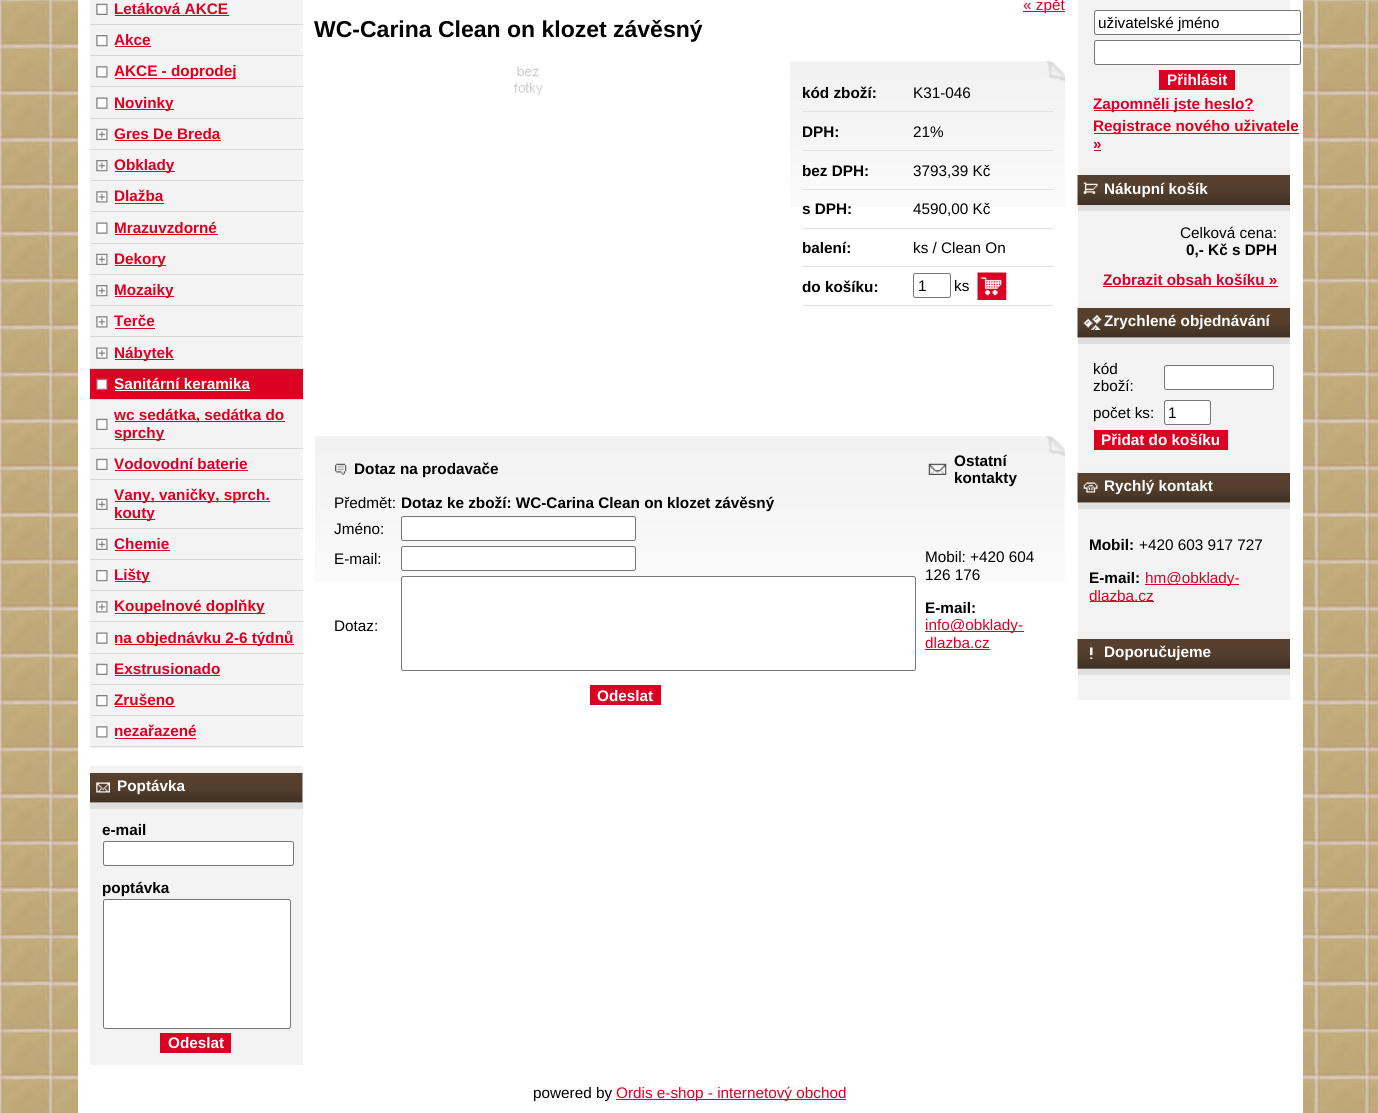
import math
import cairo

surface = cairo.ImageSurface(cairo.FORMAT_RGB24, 1378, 1113)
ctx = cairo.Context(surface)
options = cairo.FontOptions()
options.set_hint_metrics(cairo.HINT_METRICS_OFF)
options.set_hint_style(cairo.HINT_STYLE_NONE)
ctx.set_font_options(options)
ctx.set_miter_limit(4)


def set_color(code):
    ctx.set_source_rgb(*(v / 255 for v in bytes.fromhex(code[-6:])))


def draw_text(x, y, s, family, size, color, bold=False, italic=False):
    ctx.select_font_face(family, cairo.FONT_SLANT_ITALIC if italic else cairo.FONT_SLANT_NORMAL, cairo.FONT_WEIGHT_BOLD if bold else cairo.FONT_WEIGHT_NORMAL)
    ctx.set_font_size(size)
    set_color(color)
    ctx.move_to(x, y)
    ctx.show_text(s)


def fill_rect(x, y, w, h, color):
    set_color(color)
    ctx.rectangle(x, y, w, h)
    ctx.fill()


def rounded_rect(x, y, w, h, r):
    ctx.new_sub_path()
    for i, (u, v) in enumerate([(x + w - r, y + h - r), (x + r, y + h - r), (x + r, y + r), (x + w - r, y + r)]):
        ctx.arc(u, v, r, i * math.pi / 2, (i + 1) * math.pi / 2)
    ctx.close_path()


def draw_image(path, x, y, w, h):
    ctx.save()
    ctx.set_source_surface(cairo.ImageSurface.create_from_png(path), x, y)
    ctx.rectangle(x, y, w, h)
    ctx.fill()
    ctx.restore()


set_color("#ffffff")
ctx.paint()
draw_image("assets/img1.png", 0, 0, 1378, 1113)
fill_rect(78, 0, 1225, 1113, "#ffffff")
fill_rect(90, 0, 213, 748, "#f3f3f3")
draw_image("assets/img2.png", 96, 3, 12, 12)
fill_rect(90, 24, 213, 1, "#d8d8d8")
draw_text(114, 14, "Letáková AKCE", "Liberation Sans", 15.3, "#dc0023", bold=True)
fill_rect(115, 15, 114, 1, "#dc0023")
draw_image("assets/img3.png", 96, 35, 12, 12)
fill_rect(90, 55, 213, 1, "#d8d8d8")
draw_text(114, 45, "Akce", "Liberation Sans", 15.3, "#dc0023", bold=True)
fill_rect(115, 46, 36, 1, "#dc0023")
draw_image("assets/img4.png", 96, 66, 12, 12)
fill_rect(90, 86, 213, 1, "#d8d8d8")
fill_rect(115, 78, 121, 1, "#dc0023")
draw_text(114, 76, "AKCE - doprodej", "Liberation Sans", 15.3, "#dc0023", bold=True)
draw_image("assets/img5.png", 96, 97, 12, 12)
fill_rect(90, 118, 213, 1, "#d8d8d8")
fill_rect(115, 109, 59, 1, "#dc0023")
draw_text(114, 108, "Novinky", "Liberation Sans", 15.3, "#dc0023", bold=True)
draw_image("assets/img6.png", 96, 128, 12, 12)
fill_rect(90, 149, 213, 1, "#d8d8d8")
draw_text(114, 139, "Gres De Breda", "Liberation Sans", 15.3, "#dc0023", bold=True)
fill_rect(115, 140, 106, 1, "#dc0023")
draw_image("assets/img7.png", 96, 160, 12, 12)
fill_rect(90, 180, 213, 1, "#d8d8d8")
fill_rect(115, 171, 60, 1, "#dc0023")
draw_text(114, 170, "Obklady", "Liberation Sans", 15.3, "#dc0023", bold=True)
draw_image("assets/img8.png", 96, 191, 12, 12)
fill_rect(90, 211, 213, 1, "#d8d8d8")
draw_text(114, 201, "Dlažba", "Liberation Sans", 15.3, "#dc0023", bold=True)
fill_rect(115, 203, 49, 1, "#dc0023")
draw_image("assets/img5.png", 96, 222, 12, 12)
fill_rect(90, 243, 213, 1, "#d8d8d8")
draw_text(114, 233, "Mrazuvzdorné", "Liberation Sans", 15.3, "#dc0023", bold=True)
fill_rect(115, 234, 103, 1, "#dc0023")
draw_image("assets/img6.png", 96, 253, 12, 12)
fill_rect(90, 274, 213, 1, "#d8d8d8")
fill_rect(115, 265, 51, 1, "#dc0023")
draw_text(114, 264, "Dekory", "Liberation Sans", 15.3, "#dc0023", bold=True)
draw_image("assets/img7.png", 96, 285, 12, 12)
fill_rect(90, 305, 213, 1, "#d8d8d8")
fill_rect(115, 296, 59, 1, "#dc0023")
draw_text(114, 295, "Mozaiky", "Liberation Sans", 15.3, "#dc0023", bold=True)
draw_image("assets/img8.png", 96, 316, 12, 12)
fill_rect(90, 336, 213, 1, "#d8d8d8")
draw_text(114, 326, "Terče", "Liberation Sans", 15.3, "#dc0023", bold=True)
fill_rect(115, 328, 40, 1, "#dc0023")
draw_image("assets/img9.png", 96, 347, 12, 12)
fill_rect(90, 368, 213, 1, "#d8d8d8")
fill_rect(115, 359, 59, 1, "#dc0023")
draw_text(114, 358, "Nábytek", "Liberation Sans", 15.3, "#dc0023", bold=True)
fill_rect(90, 369, 213, 30, "#dc0023")
draw_image("assets/img10.png", 96, 378, 12, 12)
fill_rect(90, 399, 213, 1, "#d8d8d8")
draw_text(114, 389, "Sanitární keramika", "Liberation Sans", 15.3, "#ffffff", bold=True)
fill_rect(115, 390, 135, 1, "#ffffff")
draw_image("assets/img2.png", 96, 418, 12, 12)
fill_rect(90, 448, 213, 1, "#d8d8d8")
fill_rect(115, 421, 170, 1, "#dc0023")
draw_text(114, 420, "wc sedátka, sedátka do", "Liberation Sans", 15.3, "#dc0023", bold=True)
fill_rect(115, 439, 50, 1, "#dc0023")
draw_text(114, 438, "sprchy", "Liberation Sans", 15.3, "#dc0023", bold=True)
draw_image("assets/img2.png", 96, 458, 12, 12)
fill_rect(90, 479, 213, 1, "#d8d8d8")
draw_text(114, 469, "Vodovodní baterie", "Liberation Sans", 15.3, "#dc0023", bold=True)
fill_rect(115, 470, 133, 1, "#dc0023")
draw_image("assets/img6.png", 96, 498, 12, 12)
fill_rect(90, 528, 213, 1, "#d8d8d8")
fill_rect(115, 501, 155, 1, "#dc0023")
draw_text(114, 500, "Vany, vaničky, sprch.", "Liberation Sans", 15.3, "#dc0023", bold=True)
fill_rect(115, 519, 40, 1, "#dc0023")
draw_text(114, 518, "kouty", "Liberation Sans", 15.3, "#dc0023", bold=True)
draw_image("assets/img11.png", 96, 538, 12, 12)
fill_rect(90, 559, 213, 1, "#d8d8d8")
draw_text(114, 549, "Chemie", "Liberation Sans", 15.3, "#dc0023", bold=True)
fill_rect(115, 550, 55, 1, "#dc0023")
draw_image("assets/img3.png", 96, 570, 12, 12)
fill_rect(90, 590, 213, 1, "#d8d8d8")
fill_rect(115, 581, 35, 1, "#dc0023")
draw_text(114, 580, "Lišty", "Liberation Sans", 15.3, "#dc0023", bold=True)
draw_image("assets/img8.png", 96, 601, 12, 12)
fill_rect(90, 621, 213, 1, "#d8d8d8")
fill_rect(115, 613, 150, 1, "#dc0023")
draw_text(114, 611, "Koupelnové doplňky", "Liberation Sans", 15.3, "#dc0023", bold=True)
draw_image("assets/img5.png", 96, 632, 12, 12)
fill_rect(90, 653, 213, 1, "#d8d8d8")
fill_rect(115, 644, 179, 1, "#dc0023")
draw_text(114, 643, "na objednávku 2-6 týdnů", "Liberation Sans", 15.3, "#dc0023", bold=True)
draw_image("assets/img2.png", 96, 663, 12, 12)
fill_rect(90, 684, 213, 1, "#d8d8d8")
draw_text(114, 674, "Exstrusionado", "Liberation Sans", 15.3, "#dc0023", bold=True)
fill_rect(115, 675, 105, 1, "#dc0023")
draw_image("assets/img3.png", 96, 695, 12, 12)
fill_rect(90, 715, 213, 1, "#d8d8d8")
draw_text(114, 705, "Zrušeno", "Liberation Sans", 15.3, "#dc0023", bold=True)
fill_rect(115, 706, 60, 1, "#dc0023")
draw_image("assets/img4.png", 96, 726, 12, 12)
fill_rect(90, 746, 213, 1, "#d8d8d8")
draw_text(114, 736, "nezařazené", "Liberation Sans", 15.3, "#dc0023", bold=True)
fill_rect(115, 738, 81, 1, "#dc0023")
draw_image("assets/img12.png", 90, 773, 213, 30)
fill_rect(90, 766, 213, 7, "#f2f2f2")
fill_rect(90, 803, 213, 6, "#dfdfdf")
draw_image("assets/img13.png", 96, 782, 14, 11)
draw_text(117, 791, "Poptávka", "Liberation Sans", 15.3, "#ffffff", bold=True)
fill_rect(90, 809, 213, 256, "#f3f3f3")
draw_text(102, 835, "e-mail", "Liberation Sans", 15.3, "#000000", bold=True)
set_color("#ffffff")
rounded_rect(103.5, 841.5, 190, 24, 2)
ctx.fill_preserve()
set_color("#767676")
ctx.set_line_width(1)
ctx.stroke()
draw_text(102, 893, "poptávka", "Liberation Sans", 15.3, "#000000", bold=True)
set_color("#ffffff")
rounded_rect(103.5, 899.5, 187, 129, 2)
ctx.fill_preserve()
set_color("#767676")
ctx.stroke()
fill_rect(160, 1033, 71, 20, "#dc0023")
draw_text(168, 1048, "Odeslat", "Liberation Sans", 15.3, "#ffffff", bold=True)
fill_rect(1023, 11, 42, 1, "#dc0023")
draw_text(1023, 10, "« zpět", "Liberation Sans", 15.3, "#dc0023")
draw_text(314, 37, "WC-Carina Clean on klozet závěsný", "Liberation Sans", 23, "#000000", bold=True)
draw_image("assets/img14.png", 513, 66, 30, 29)
draw_image("assets/img15.png", 790, 61, 275, 146)
fill_rect(803, 111, 250, 1, "#e0e0e0")
draw_text(802, 98, "kód zboží:", "Liberation Sans", 15.3, "#000000", bold=True)
draw_text(913, 98, "K31-046", "Liberation Sans", 15.3, "#000000")
fill_rect(803, 150, 250, 1, "#e0e0e0")
draw_text(802, 137, "DPH:", "Liberation Sans", 15.3, "#000000", bold=True)
draw_text(913, 137, "21%", "Liberation Sans", 15.3, "#000000")
fill_rect(803, 189, 250, 1, "#e0e0e0")
draw_text(802, 176, "bez DPH:", "Liberation Sans", 15.3, "#000000", bold=True)
draw_text(913, 176, "3793,39 Kč", "Liberation Sans", 15.3, "#000000")
fill_rect(803, 228, 250, 1, "#e0e0e0")
draw_text(802, 214, "s DPH:", "Liberation Sans", 15.3, "#000000", bold=True)
draw_text(913, 214, "4590,00 Kč", "Liberation Sans", 15.3, "#000000")
fill_rect(803, 266, 250, 1, "#e0e0e0")
draw_text(802, 253, "balení:", "Liberation Sans", 15.3, "#000000", bold=True)
draw_text(913, 253, "ks / Clean On", "Liberation Sans", 15.3, "#000000")
fill_rect(803, 305, 250, 1, "#e0e0e0")
draw_text(802, 292, "do košíku:", "Liberation Sans", 15.3, "#000000", bold=True)
rounded_rect(913.5, 273.5, 37, 24, 2)
set_color("#767676")
ctx.stroke()
draw_text(918, 291, "1", "Liberation Sans", 15.3, "#000000")
draw_text(954, 291, "ks", "Liberation Sans", 15.3, "#000000")
draw_image("assets/img16.png", 977, 272, 30, 28)
draw_image("assets/img17.png", 315, 436, 750, 146)
draw_image("assets/img18.png", 335, 463, 12, 12)
draw_text(354, 474, "Dotaz na prodavače", "Liberation Sans", 15.3, "#000000", bold=True)
draw_image("assets/img19.png", 928, 463, 19, 12)
draw_text(954, 466, "Ostatní", "Liberation Sans", 15.3, "#000000", bold=True)
draw_text(954, 483, "kontakty", "Liberation Sans", 15.3, "#000000", bold=True)
draw_text(334, 508, "Předmět:", "Liberation Sans", 15.3, "#000000")
draw_text(401, 508, "Dotaz ke zboží: WC-Carina Clean on klozet závěsný", "Liberation Sans", 15.3, "#000000", bold=True)
draw_text(334, 534, "Jméno:", "Liberation Sans", 15.3, "#000000")
set_color("#ffffff")
rounded_rect(401.5, 516.5, 234, 24, 2)
ctx.fill_preserve()
set_color("#767676")
ctx.stroke()
draw_text(334, 564, "E-mail:", "Liberation Sans", 15.3, "#000000")
set_color("#ffffff")
rounded_rect(401.5, 546.5, 234, 24, 2)
ctx.fill_preserve()
set_color("#767676")
ctx.stroke()
draw_text(334, 631, "Dotaz:", "Liberation Sans", 15.3, "#000000")
set_color("#ffffff")
rounded_rect(401.5, 576.5, 514, 94, 2)
ctx.fill_preserve()
set_color("#767676")
ctx.stroke()
fill_rect(590, 685, 71, 20, "#dc0023")
draw_text(597, 701, "Odeslat", "Liberation Sans", 15.3, "#ffffff", bold=True)
draw_text(925, 562, "Mobil: +420 604", "Liberation Sans", 15.3, "#000000")
draw_text(925, 580, "126 176", "Liberation Sans", 15.3, "#000000")
draw_text(925, 613, "E-mail:", "Liberation Sans", 15.3, "#000000", bold=True)
fill_rect(925, 631, 99, 1, "#dc0023")
draw_text(925, 630, "info@obklady-", "Liberation Sans", 15.3, "#dc0023")
draw_text(925, 648, "dlazba.cz", "Liberation Sans", 15.3, "#dc0023")
fill_rect(925, 649, 65, 1, "#dc0023")
fill_rect(1078, 0, 212, 169, "#f3f3f3")
set_color("#ffffff")
rounded_rect(1094.5, 10.5, 206, 24, 2)
ctx.fill_preserve()
set_color("#767676")
ctx.stroke()
draw_text(1098, 28, "uživatelské jméno", "Liberation Sans", 15.3, "#000000")
set_color("#ffffff")
rounded_rect(1094.5, 40.5, 206, 24, 2)
ctx.fill_preserve()
set_color("#767676")
ctx.stroke()
fill_rect(1159, 70, 76, 20, "#dc0023")
draw_text(1167, 85, "Přihlásit", "Liberation Sans", 15.3, "#ffffff", bold=True)
fill_rect(1094, 110, 160, 1, "#dc0023")
draw_text(1093, 109, "Zapomněli jste heslo?", "Liberation Sans", 15.3, "#dc0023", bold=True)
fill_rect(1094, 133, 205, 1, "#dc0023")
draw_text(1093, 131, "Registrace nového uživatele", "Liberation Sans", 15.3, "#dc0023", bold=True)
draw_text(1093, 149, "»", "Liberation Sans", 15.3, "#dc0023", bold=True)
fill_rect(1094, 150, 7, 1, "#dc0023")
draw_image("assets/img20.png", 1077, 175, 213, 30)
fill_rect(1078, 169, 212, 6, "#f2f2f2")
fill_rect(1078, 205, 212, 6, "#dfdfdf")
draw_image("assets/img21.png", 1083, 182, 15, 12)
draw_text(1104, 194, "Nákupní košík", "Liberation Sans", 15.3, "#ffffff", bold=True)
fill_rect(1078, 211, 212, 90, "#f3f3f3")
draw_text(1180, 238, "Celková cena:", "Liberation Sans", 15.3, "#000000")
draw_text(1186, 255, "0,- Kč s DPH", "Liberation Sans", 15.3, "#000000", bold=True)
draw_text(1103, 285, "Zobrazit obsah košíku »", "Liberation Sans", 15.3, "#dc0023", bold=True)
fill_rect(1103, 286, 175, 1, "#dc0023")
draw_image("assets/img22.png", 1077, 307, 213, 31)
fill_rect(1078, 301, 212, 7, "#f2f2f2")
fill_rect(1078, 338, 212, 6, "#dfdfdf")
draw_image("assets/img23.png", 1083, 315, 19, 15)
draw_text(1104, 326, "Zrychlené objednávání", "Liberation Sans", 15.3, "#ffffff", bold=True)
fill_rect(1078, 344, 212, 122, "#f3f3f3")
draw_text(1093, 374, "kód", "Liberation Sans", 15.3, "#000000")
draw_text(1093, 391, "zboží:", "Liberation Sans", 15.3, "#000000")
set_color("#ffffff")
rounded_rect(1164.5, 365.5, 109, 24, 2)
ctx.fill_preserve()
set_color("#767676")
ctx.stroke()
draw_text(1093, 418, "počet ks:", "Liberation Sans", 15.3, "#000000")
set_color("#ffffff")
rounded_rect(1164.5, 400.5, 46, 24, 2)
ctx.fill_preserve()
set_color("#767676")
ctx.stroke()
draw_text(1168, 418, "1", "Liberation Sans", 15.3, "#000000")
fill_rect(1094, 430, 134, 20, "#dc0023")
draw_text(1101, 445, "Přidat do košíku", "Liberation Sans", 15.3, "#ffffff", bold=True)
draw_image("assets/img24.png", 1077, 472, 213, 31)
fill_rect(1078, 466, 212, 7, "#f2f2f2")
fill_rect(1078, 503, 212, 6, "#dfdfdf")
draw_image("assets/img25.png", 1083, 482, 15, 11)
draw_text(1104, 491, "Rychlý kontakt", "Liberation Sans", 15.3, "#ffffff", bold=True)
fill_rect(1078, 509, 212, 124, "#f3f3f3")
draw_text(1089, 550, "Mobil:", "Liberation Sans", 15.3, "#000000", bold=True)
draw_text(1139, 550, "+420 603 917 727", "Liberation Sans", 15.3, "#000000")
draw_text(1089, 583, "E-mail:", "Liberation Sans", 15.3, "#000000", bold=True)
fill_rect(1145, 584, 94, 1, "#dc0023")
draw_text(1145, 583, "hm@obklady-", "Liberation Sans", 15.3, "#dc0023")
fill_rect(1090, 601, 64, 1, "#dc0023")
draw_text(1089, 601, "dlazba.cz", "Liberation Sans", 15.3, "#dc0023")
draw_image("assets/img26.png", 1077, 638, 213, 31)
fill_rect(1078, 633, 212, 6, "#f2f2f2")
fill_rect(1078, 669, 212, 6, "#dfdfdf")
draw_image("assets/img27.png", 1090, 647, 3, 12)
draw_text(1104, 657, "Doporučujeme", "Liberation Sans", 15.3, "#ffffff", bold=True)
fill_rect(1078, 675, 212, 25, "#f3f3f3")
draw_text(533, 1098, "powered by", "Liberation Sans", 15.3, "#000000")
fill_rect(616, 1099, 230, 1, "#dc0023")
draw_text(616, 1098, "Ordis e-shop - internetový obchod", "Liberation Sans", 15.3, "#dc0023")
surface.write_to_png("output.png")
